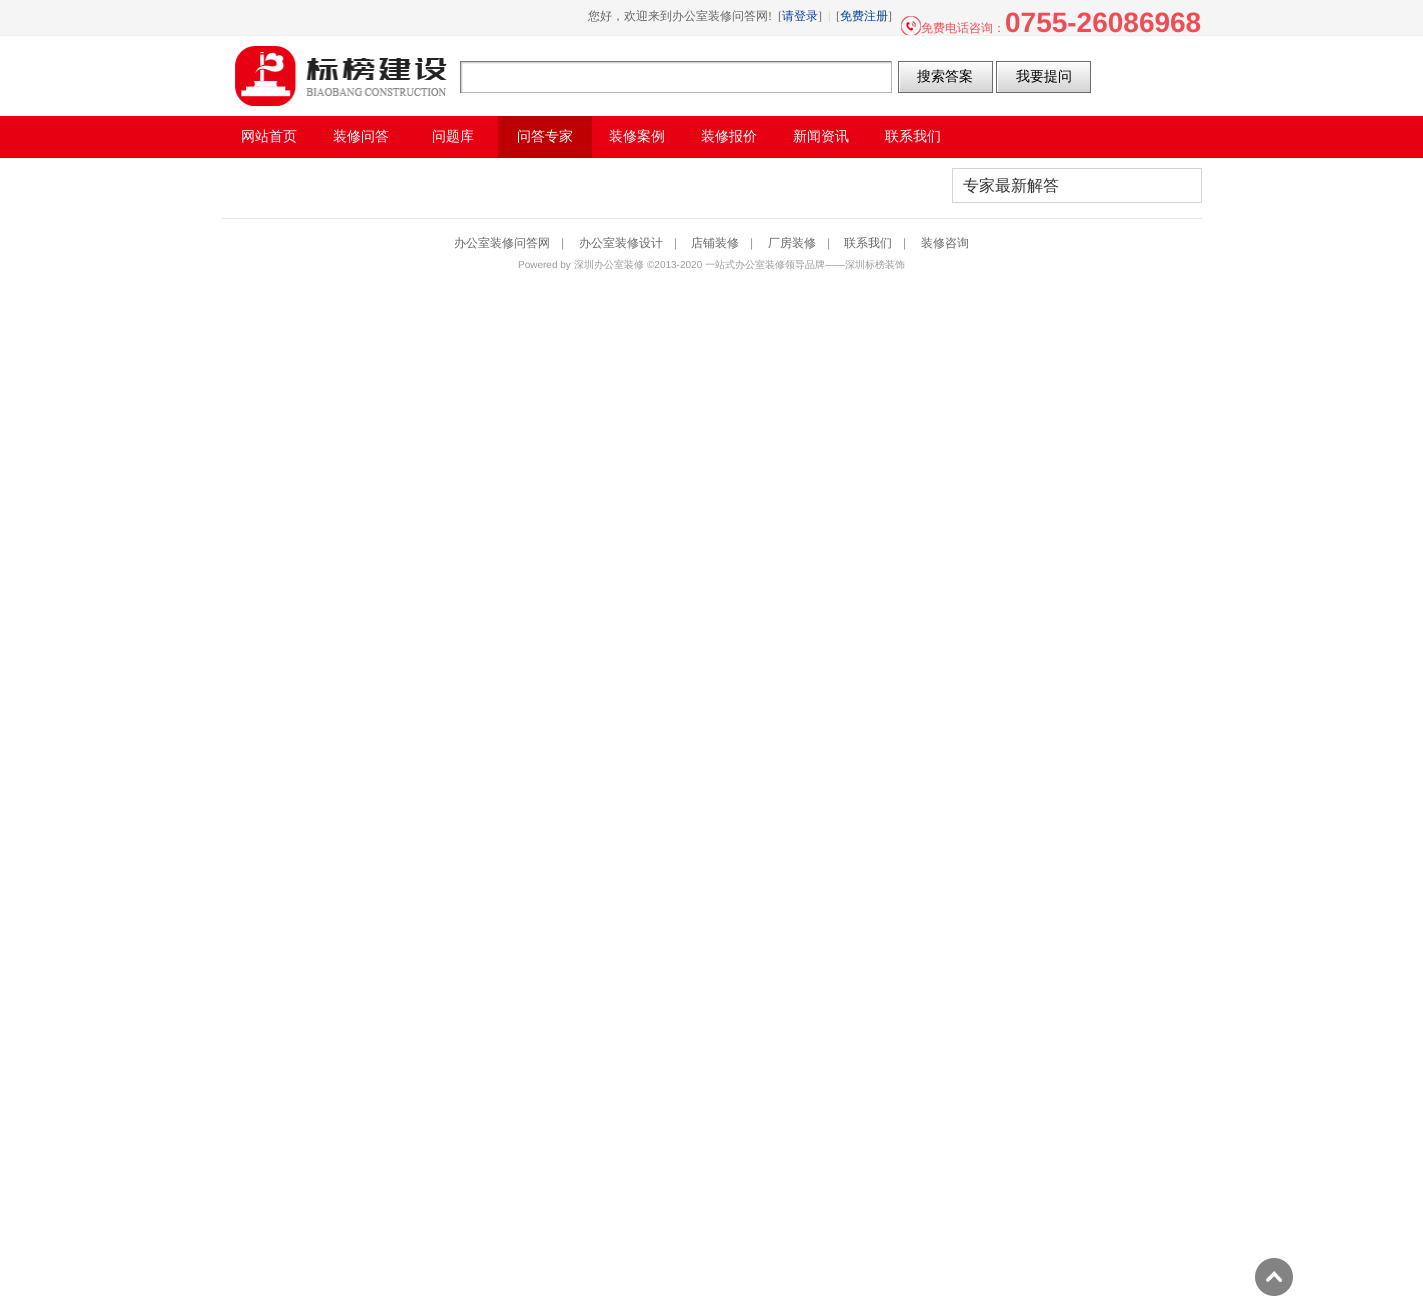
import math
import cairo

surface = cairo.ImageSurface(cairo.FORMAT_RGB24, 1423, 1316)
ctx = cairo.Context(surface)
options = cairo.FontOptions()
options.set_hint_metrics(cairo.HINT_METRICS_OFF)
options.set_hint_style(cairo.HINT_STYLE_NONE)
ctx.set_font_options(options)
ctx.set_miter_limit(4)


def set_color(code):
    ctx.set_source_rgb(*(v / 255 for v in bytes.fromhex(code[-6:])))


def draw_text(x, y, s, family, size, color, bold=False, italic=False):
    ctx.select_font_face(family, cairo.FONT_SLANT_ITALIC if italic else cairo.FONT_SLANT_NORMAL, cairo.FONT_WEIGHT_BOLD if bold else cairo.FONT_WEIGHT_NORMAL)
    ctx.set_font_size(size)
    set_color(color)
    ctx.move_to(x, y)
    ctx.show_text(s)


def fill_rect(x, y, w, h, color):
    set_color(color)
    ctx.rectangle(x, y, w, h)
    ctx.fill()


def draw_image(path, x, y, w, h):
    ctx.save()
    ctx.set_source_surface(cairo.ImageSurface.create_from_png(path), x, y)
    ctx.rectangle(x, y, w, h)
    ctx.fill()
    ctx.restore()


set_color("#ffffff")
ctx.paint()
fill_rect(0, 0, 1423, 35, "#f5f5f5")
fill_rect(0, 35, 1423, 1, "#eeeeee")
draw_text(588, 20, "您好，欢迎来到办公室装修问答网", "WenQuanYi Zen Hei Medium", 12, "#666666")
draw_text(768, 20, "!  [", "Liberation Serif", 12, "#666666")
draw_text(782, 20, "请登录", "WenQuanYi Zen Hei Medium", 12, "#01439a")
draw_text(818, 20, "]", "Liberation Serif", 12, "#666666")
draw_text(828, 20, "|", "Liberation Serif", 12, "#cccccc")
draw_text(836, 20, "[", "Liberation Serif", 12, "#666666")
draw_text(840, 20, "免费注册", "WenQuanYi Zen Hei Medium", 12, "#01439a")
draw_text(888, 20, "]", "Liberation Serif", 12, "#666666")
draw_image("assets/img1.png", 901, 16, 20, 19)
draw_text(921, 32, "免费电话咨询：", "WenQuanYi Zen Hei Medium", 12, "#f04c53")
draw_text(1005, 32, "0755-26086968", "Liberation Sans", 28, "#f04c53", bold=True)
draw_image("assets/img2.png", 235, 46, 212, 60)
draw_image("assets/img3.png", 461, 62, 430, 30)
fill_rect(460, 61, 432, 1, "#7b7b7b")
fill_rect(891, 61, 1, 32, "#b6b6b6")
fill_rect(460, 92, 432, 1, "#b6b6b6")
fill_rect(460, 61, 1, 32, "#7b7b7b")
draw_image("assets/img4.png", 898, 61, 95, 32)
draw_text(917, 81, "搜索答案", "WenQuanYi Zen Hei Medium", 14, "#000000")
draw_image("assets/img4.png", 996, 61, 95, 32)
draw_text(1016, 81, "我要提问", "WenQuanYi Zen Hei Medium", 14, "#000000")
fill_rect(0, 116, 1423, 42, "#e60012")
draw_text(241, 141, "网站首页", "WenQuanYi Zen Hei Medium", 14, "#ffffff")
draw_text(333, 141, "装修问答", "WenQuanYi Zen Hei Medium", 14, "#ffffff")
draw_text(432, 141, "问题库", "WenQuanYi Zen Hei Medium", 14, "#ffffff")
fill_rect(498, 116, 94, 42, "#bd0000")
draw_text(517, 141, "问答专家", "WenQuanYi Zen Hei Medium", 14, "#ffffff")
draw_text(609, 141, "装修案例", "WenQuanYi Zen Hei Medium", 14, "#ffffff")
draw_text(701, 141, "装修报价", "WenQuanYi Zen Hei Medium", 14, "#ffffff")
draw_text(793, 141, "新闻资讯", "WenQuanYi Zen Hei Medium", 14, "#ffffff")
draw_text(885, 141, "联系我们", "WenQuanYi Zen Hei Medium", 14, "#ffffff")
ctx.rectangle(952.5, 168.5, 249, 34)
set_color("#d5d5d5")
ctx.set_line_width(1)
ctx.stroke()
draw_text(963, 191, "专家最新解答", "WenQuanYi Zen Hei Medium", 16, "#333333")
fill_rect(222, 218, 980, 1, "#e3e3e3")
draw_text(454, 247, "办公室装修问答网", "WenQuanYi Zen Hei Medium", 12, "#666666")
draw_text(561, 247, "|", "Liberation Sans", 12, "#999999")
draw_text(579, 247, "办公室装修设计", "WenQuanYi Zen Hei Medium", 12, "#666666")
draw_text(674, 247, "|", "Liberation Sans", 12, "#999999")
draw_text(691, 247, "店铺装修", "WenQuanYi Zen Hei Medium", 12, "#666666")
draw_text(750, 247, "|", "Liberation Sans", 12, "#999999")
draw_text(768, 247, "厂房装修", "WenQuanYi Zen Hei Medium", 12, "#666666")
draw_text(827, 247, "|", "Liberation Sans", 12, "#999999")
draw_text(844, 247, "联系我们", "WenQuanYi Zen Hei Medium", 12, "#666666")
draw_text(903, 247, "|", "Liberation Sans", 12, "#999999")
draw_text(921, 247, "装修咨询", "WenQuanYi Zen Hei Medium", 12, "#666666")
draw_text(518, 268, "Powered by", "Liberation Sans", 10, "#999999")
draw_text(574, 268, "深圳办公室装修", "WenQuanYi Zen Hei Medium", 10, "#999999")
draw_text(647, 268, "©2013-2020", "Liberation Sans", 10, "#999999")
draw_text(705, 268, "一站式办公室装修领导品牌", "WenQuanYi Zen Hei Medium", 10, "#999999")
draw_text(825, 268, "——", "Liberation Sans", 10, "#999999")
draw_text(845, 268, "深圳标榜装饰", "WenQuanYi Zen Hei Medium", 10, "#999999")
draw_image("assets/img5.png", 1255, 1258, 38, 38)
surface.write_to_png("output.png")
